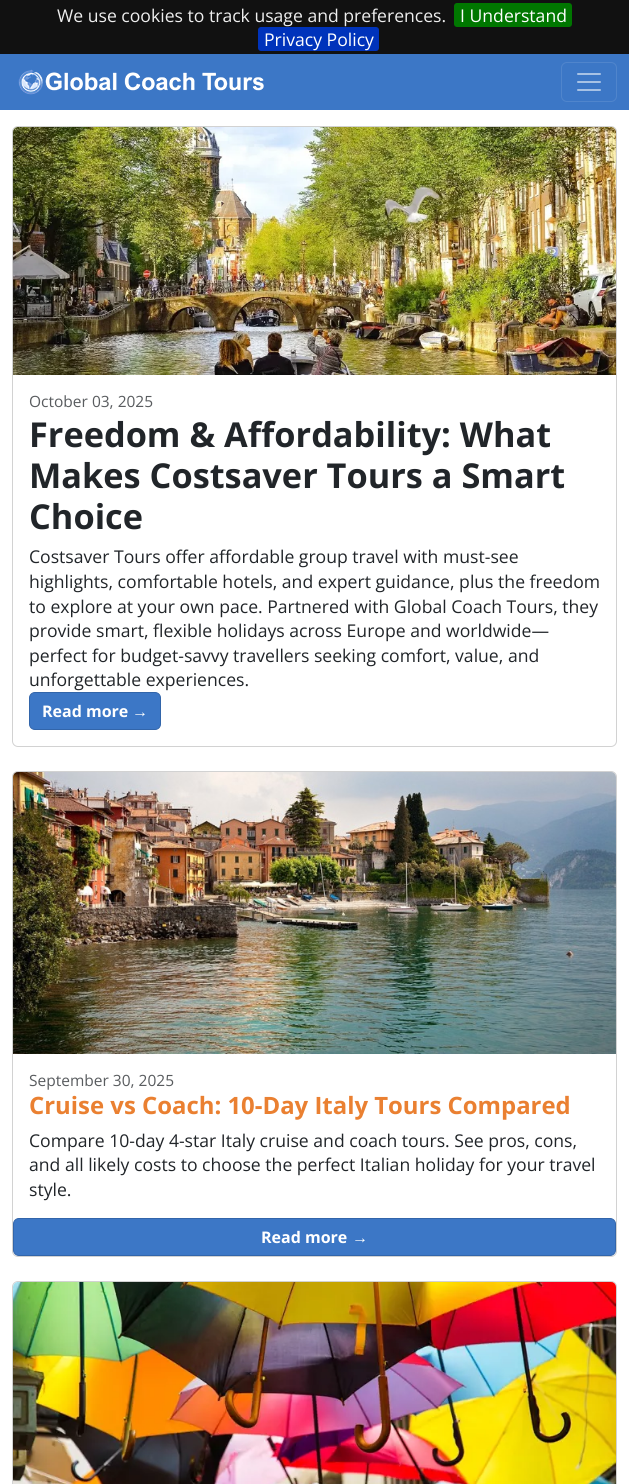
import math
import cairo

surface = cairo.ImageSurface(cairo.FORMAT_RGB24, 629, 1484)
ctx = cairo.Context(surface)
options = cairo.FontOptions()
options.set_hint_metrics(cairo.HINT_METRICS_OFF)
options.set_hint_style(cairo.HINT_STYLE_NONE)
ctx.set_font_options(options)
ctx.set_miter_limit(4)


def set_color(code):
    ctx.set_source_rgb(*(v / 255 for v in bytes.fromhex(code[-6:])))


def draw_text(x, y, s, family, size, color, bold=False, italic=False):
    ctx.select_font_face(family, cairo.FONT_SLANT_ITALIC if italic else cairo.FONT_SLANT_NORMAL, cairo.FONT_WEIGHT_BOLD if bold else cairo.FONT_WEIGHT_NORMAL)
    ctx.set_font_size(size)
    set_color(color)
    ctx.move_to(x, y)
    ctx.show_text(s)


def fill_rect(x, y, w, h, color):
    set_color(color)
    ctx.rectangle(x, y, w, h)
    ctx.fill()


def rounded_rect(x, y, w, h, r):
    ctx.new_sub_path()
    for i, (u, v) in enumerate([(x + w - r, y + h - r), (x + r, y + h - r), (x + r, y + r), (x + w - r, y + r)]):
        ctx.arc(u, v, r, i * math.pi / 2, (i + 1) * math.pi / 2)
    ctx.close_path()


def draw_image(path, x, y, w, h):
    ctx.save()
    ctx.set_source_surface(cairo.ImageSurface.create_from_png(path), x, y)
    ctx.rectangle(x, y, w, h)
    ctx.fill()
    ctx.restore()


set_color("#ffffff")
ctx.paint()
fill_rect(0, 0, 629, 54, "#111111")
draw_text(57, 22, "We use cookies to track usage and preferences.", "Open Sans", 17.6, "#eeeeee")
set_color("#007700")
rounded_rect(454, 3, 118, 24, 3)
ctx.fill()
draw_text(460, 22, "I Understand", "Open Sans", 17.6, "#ffffff")
set_color("#0033bb")
rounded_rect(258, 27, 121, 24, 3)
ctx.fill()
draw_text(264, 46, "Privacy Policy", "Open Sans", 17.6, "#ffffff")
fill_rect(0, 54, 629, 56, "#3c77c6")
draw_image("assets/img1.png", 18, 69, 246, 26)
rounded_rect(561.5, 62.5, 55, 39, 5.5)
set_color("#5085cc")
ctx.set_line_width(1)
ctx.stroke()
draw_image("assets/img2.png", 577, 73, 24, 18)
rounded_rect(12.5, 126.5, 604, 620, 5.5)
set_color("#d2d2d2")
ctx.stroke()
draw_image("assets/img3.png", 13, 127, 603, 248)
draw_text(29, 407, "October 03, 2025", "Open Sans", 15.5, "#595c5f")
draw_text(29, 447, "Freedom & Affordability: What", "Open Sans", 34.3, "#212529", bold=True)
draw_text(29, 488, "Makes Costsaver Tours a Smart", "Open Sans", 34.3, "#212529", bold=True)
draw_text(29, 529, "Choice", "Open Sans", 34.3, "#212529", bold=True)
draw_text(29, 563, "Costsaver Tours offer affordable group travel with must-see", "Open Sans", 17.6, "#212529")
draw_text(29, 588, "highlights, comfortable hotels, and expert guidance, plus the freedom", "Open Sans", 17.6, "#212529")
draw_text(29, 613, "to explore at your own pace. Partnered with Global Coach Tours, they", "Open Sans", 17.6, "#212529")
draw_text(29, 637, "provide smart, flexible holidays across Europe and worldwide—", "Open Sans", 17.6, "#212529")
draw_text(29, 662, "perfect for budget-savvy travellers seeking comfort, value, and", "Open Sans", 17.6, "#212529")
draw_text(29, 686, "unforgettable experiences.", "Open Sans", 17.6, "#212529")
set_color("#3c77c6")
rounded_rect(29.5, 692.5, 131, 37, 5.5)
ctx.fill_preserve()
set_color("#3265aa")
ctx.stroke()
draw_text(42, 717, "Read more", "Open Sans", 16, "#ffffff", bold=True)
draw_text(132, 717, "→", "Liberation Sans", 16, "#ffffff", bold=True)
rounded_rect(12.5, 771.5, 604, 485, 5.5)
set_color("#d2d2d2")
ctx.stroke()
draw_image("assets/img4.png", 13, 772, 603, 282)
draw_text(29, 1086, "September 30, 2025", "Open Sans", 15.5, "#595c5f")
draw_text(29, 1114, "Cruise vs Coach: 10-Day Italy Tours Compared", "Open Sans", 23.9, "#ea8031", bold=True)
draw_text(29, 1147, "Compare 10-day 4-star Italy cruise and coach tours. See pros, cons,", "Open Sans", 17.6, "#212529")
draw_text(29, 1171, "and all likely costs to choose the perfect Italian holiday for your travel", "Open Sans", 17.6, "#212529")
draw_text(29, 1196, "style.", "Open Sans", 17.6, "#212529")
set_color("#3c77c6")
rounded_rect(13.5, 1218.5, 602, 37, 5.5)
ctx.fill_preserve()
set_color("#3265aa")
ctx.stroke()
draw_text(261, 1243, "Read more", "Open Sans", 16, "#ffffff", bold=True)
draw_text(352, 1243, "→", "Liberation Sans", 16, "#ffffff", bold=True)
rounded_rect(12.5, 1281.5, 604, 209, 5.5)
set_color("#d2d2d2")
ctx.stroke()
draw_image("assets/img5.png", 13, 1282, 603, 202)
surface.write_to_png("output.png")
